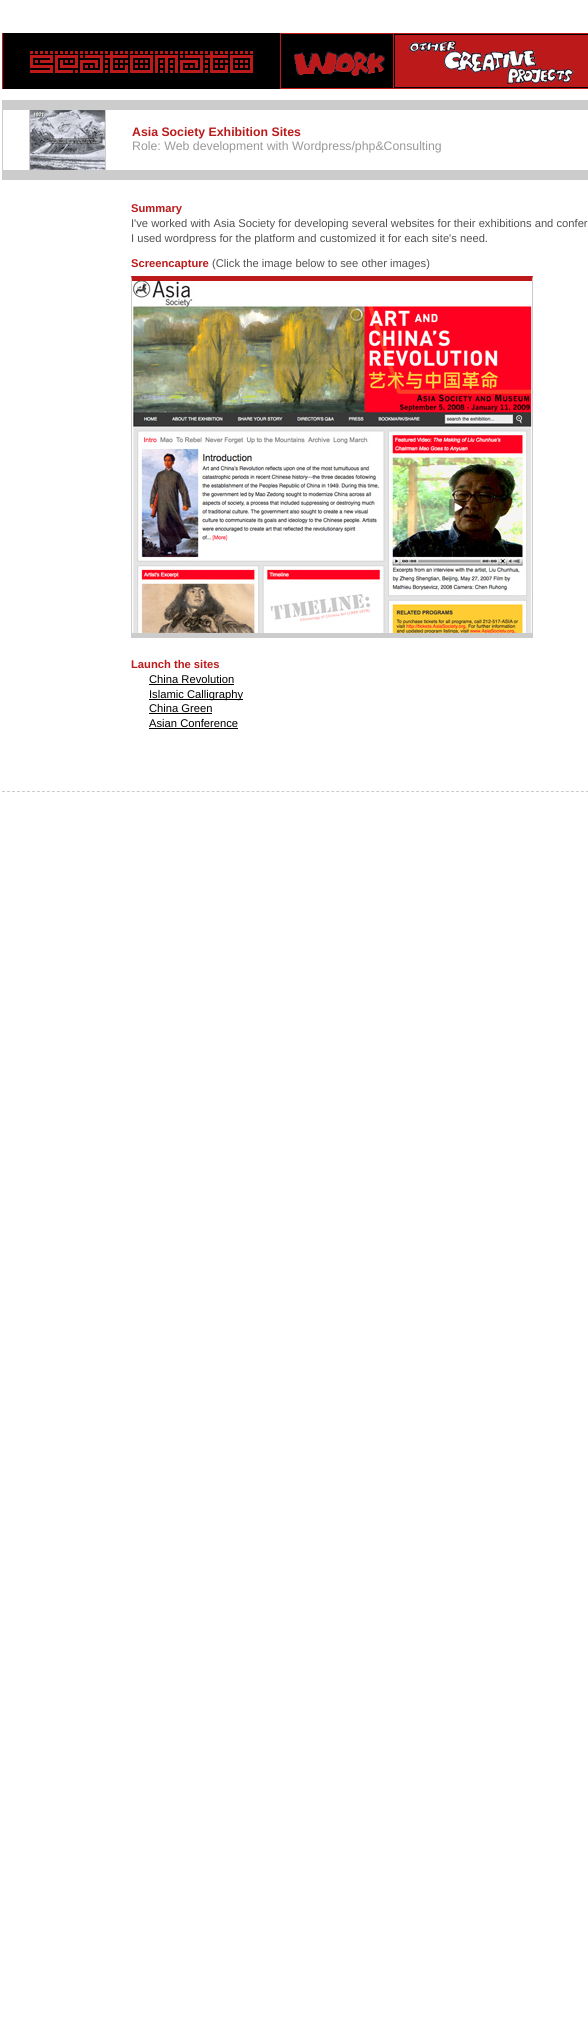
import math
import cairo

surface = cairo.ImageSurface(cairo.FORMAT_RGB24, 588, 2030)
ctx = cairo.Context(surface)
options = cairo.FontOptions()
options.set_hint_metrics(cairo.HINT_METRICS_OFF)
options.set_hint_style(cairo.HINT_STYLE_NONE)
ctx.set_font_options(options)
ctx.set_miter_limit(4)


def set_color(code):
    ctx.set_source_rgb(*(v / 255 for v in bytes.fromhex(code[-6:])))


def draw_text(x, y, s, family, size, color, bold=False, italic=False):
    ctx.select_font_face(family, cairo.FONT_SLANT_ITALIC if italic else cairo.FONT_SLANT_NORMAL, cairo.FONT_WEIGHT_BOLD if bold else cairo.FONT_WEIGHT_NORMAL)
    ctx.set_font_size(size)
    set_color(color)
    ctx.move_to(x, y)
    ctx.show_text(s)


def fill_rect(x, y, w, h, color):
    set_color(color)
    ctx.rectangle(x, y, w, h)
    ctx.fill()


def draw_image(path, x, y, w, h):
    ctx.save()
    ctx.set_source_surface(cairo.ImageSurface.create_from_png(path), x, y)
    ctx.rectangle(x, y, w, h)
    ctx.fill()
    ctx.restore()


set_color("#ffffff")
ctx.paint()
draw_image("assets/img1.png", 2, 33, 279, 56)
draw_image("assets/img2.png", 281, 33, 113, 56)
draw_image("assets/img3.png", 394, 33, 194, 56)
fill_rect(3, 100, 585, 10, "#cccccc")
fill_rect(3, 170, 585, 10, "#cccccc")
fill_rect(2, 100, 1, 80, "#cccccc")
fill_rect(105, 110, 1, 60, "#cccccc")
fill_rect(29, 110, 1, 60, "#cccccc")
draw_image("assets/img4.png", 30, 110, 75, 60)
draw_text(132, 136, "Asia Society Exhibition Sites", "Liberation Sans", 12.3, "#bb191a", bold=True)
draw_text(132, 150, "Role: Web development with Wordpress/php&Consulting", "Liberation Sans", 12.3, "#999999")
draw_text(131, 212, "Summary", "Liberation Sans", 11.2, "#bb191a", bold=True)
draw_text(131, 227, "I've worked with Asia Society for developing several websites for their exhibitions and confer", "Liberation Sans", 11.2, "#545050")
draw_text(131, 242, "I used wordpress for the platform and customized it for each site's need.", "Liberation Sans", 11.2, "#545050")
draw_text(131, 267, "Screencapture", "Liberation Sans", 11.2, "#bb191a", bold=True)
draw_text(212, 267, "(Click the image below to see other images)", "Liberation Sans", 11.2, "#545050")
set_color("#bb191a")
ctx.new_path()
ctx.move_to(131, 276)
ctx.line_to(533, 276)
ctx.line_to(532, 281)
ctx.line_to(132, 281)
ctx.close_path()
ctx.fill()
set_color("#cccccc")
ctx.new_path()
ctx.move_to(533, 276)
ctx.line_to(533, 638)
ctx.line_to(532, 633)
ctx.line_to(532, 281)
ctx.close_path()
ctx.fill()
fill_rect(131, 633, 402, 5, "#cccccc")
ctx.new_path()
ctx.move_to(131, 638)
ctx.line_to(131, 276)
ctx.line_to(132, 281)
ctx.line_to(132, 633)
ctx.close_path()
ctx.fill()
draw_image("assets/img5.png", 132, 281, 400, 352)
draw_text(131, 668, "Launch the sites", "Liberation Sans", 11.2, "#bb191a", bold=True)
draw_text(149, 683, "China Revolution", "Liberation Sans", 11.2, "#000000")
fill_rect(149, 684, 85, 1, "#000000")
fill_rect(149, 699, 94, 1, "#000000")
draw_text(149, 698, "Islamic Calligraphy", "Liberation Sans", 11.2, "#000000")
draw_text(149, 712, "China Green", "Liberation Sans", 11.2, "#000000")
fill_rect(149, 713, 63, 1, "#000000")
draw_text(149, 727, "Asian Conference", "Liberation Sans", 11.2, "#000000")
fill_rect(149, 728, 89, 1, "#000000")
ctx.new_path()
ctx.move_to(2, 791.5)
ctx.line_to(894, 791.5)
set_color("#cccccc")
ctx.set_line_width(1)
ctx.set_dash([3, 1.99])
ctx.stroke()
surface.write_to_png("output.png")
